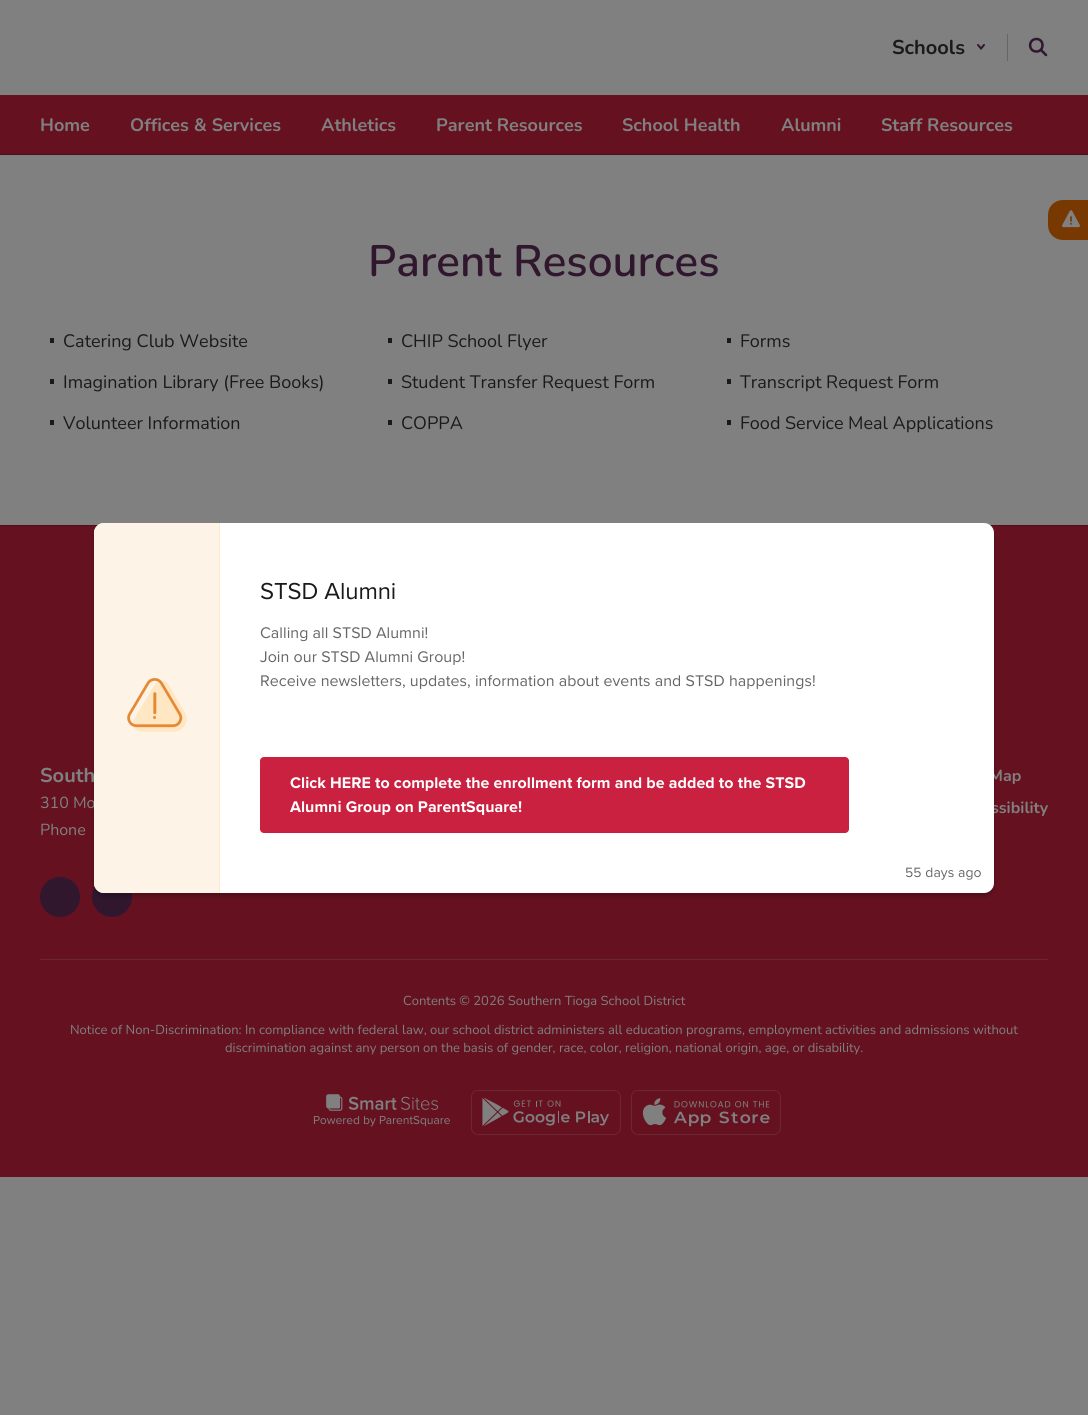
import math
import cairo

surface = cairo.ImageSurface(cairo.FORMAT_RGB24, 1088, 1415)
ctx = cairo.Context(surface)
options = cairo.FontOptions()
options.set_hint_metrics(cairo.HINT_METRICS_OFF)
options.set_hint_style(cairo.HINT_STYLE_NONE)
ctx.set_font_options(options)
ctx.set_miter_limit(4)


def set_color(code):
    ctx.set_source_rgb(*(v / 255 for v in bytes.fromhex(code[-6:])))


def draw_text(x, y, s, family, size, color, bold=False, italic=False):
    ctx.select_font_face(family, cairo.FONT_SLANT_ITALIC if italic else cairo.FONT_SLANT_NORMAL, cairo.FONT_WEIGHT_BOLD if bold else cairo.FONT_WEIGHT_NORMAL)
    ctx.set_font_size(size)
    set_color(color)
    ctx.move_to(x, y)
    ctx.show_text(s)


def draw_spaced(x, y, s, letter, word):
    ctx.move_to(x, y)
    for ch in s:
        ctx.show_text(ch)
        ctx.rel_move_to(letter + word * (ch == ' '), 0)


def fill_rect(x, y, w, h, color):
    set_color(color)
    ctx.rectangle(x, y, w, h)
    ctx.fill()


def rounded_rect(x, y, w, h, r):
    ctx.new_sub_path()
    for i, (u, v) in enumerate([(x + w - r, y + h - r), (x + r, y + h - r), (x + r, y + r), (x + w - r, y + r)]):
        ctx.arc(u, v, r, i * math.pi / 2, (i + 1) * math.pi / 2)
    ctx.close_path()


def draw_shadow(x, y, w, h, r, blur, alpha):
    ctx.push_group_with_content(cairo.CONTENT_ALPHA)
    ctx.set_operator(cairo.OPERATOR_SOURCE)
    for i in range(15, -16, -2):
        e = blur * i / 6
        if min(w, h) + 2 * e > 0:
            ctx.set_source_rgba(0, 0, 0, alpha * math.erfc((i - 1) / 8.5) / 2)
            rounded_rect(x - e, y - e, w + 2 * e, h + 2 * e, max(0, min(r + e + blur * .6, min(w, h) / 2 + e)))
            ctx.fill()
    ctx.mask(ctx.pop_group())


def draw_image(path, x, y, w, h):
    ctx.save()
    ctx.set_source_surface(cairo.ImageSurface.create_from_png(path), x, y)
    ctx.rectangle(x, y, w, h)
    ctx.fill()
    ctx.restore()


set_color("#808080")
ctx.paint()
fill_rect(1007, 34, 1, 27, "#666666")
draw_text(892, 54, "Schools", "Nunito", 20, "#1a1a1a", bold=True)
ctx.new_path()
ctx.move_to(978, 45)
ctx.line_to(981, 48.5)
ctx.line_to(984, 45)
set_color("#30172e")
ctx.set_line_cap(cairo.LINE_CAP_ROUND)
ctx.stroke()
ctx.new_path()
ctx.move_to(1036.5, 51.5)
ctx.curve_to(1044.5, 51.5, 1044.5, 39, 1036.5, 39)
ctx.curve_to(1028, 39, 1028, 51.5, 1036.5, 51.5)
ctx.close_path()
ctx.set_line_width(2.5)
ctx.set_line_cap(cairo.LINE_CAP_SQUARE)
ctx.set_line_join(cairo.LINE_JOIN_ROUND)
ctx.stroke()
ctx.new_path()
ctx.move_to(1046, 55)
ctx.line_to(1041, 50)
ctx.set_line_cap(cairo.LINE_CAP_ROUND)
ctx.stroke()
fill_rect(0, 95, 1088, 59, "#651120")
draw_text(40, 131, "Home", "Nunito", 18, "#808080", bold=True)
draw_text(130, 131, "Offices & Services", "Nunito", 18, "#808080", bold=True)
draw_text(321, 131, "Athletics", "Nunito", 18, "#808080", bold=True)
draw_text(436, 131, "Parent Resources", "Nunito", 18, "#808080", bold=True)
draw_text(622, 131, "School Health", "Nunito", 18, "#808080", bold=True)
draw_text(781, 131, "Alumni", "Nunito", 18, "#808080", bold=True)
draw_text(881, 131, "Staff Resources", "Nunito", 18, "#808080", bold=True)
fill_rect(0, 154, 1088, 1, "#510d1a")
set_color("#783801")
ctx.new_path()
ctx.move_to(1063, 200)
ctx.line_to(1088, 200)
ctx.line_to(1088, 240)
ctx.line_to(1063, 240)
ctx.curve_to(1054.5, 240, 1048, 233.5, 1048, 225)
ctx.line_to(1048, 215)
ctx.curve_to(1048, 206.5, 1054.5, 200, 1063, 200)
ctx.close_path()
ctx.fill()
draw_image("assets/img1.png", 1062, 210, 18, 18)
draw_text(368, 276, "Parent Resources", "Nunito SemiBold", 44, "#30172e")
fill_rect(50, 338, 4, 5, "#1a1a1a")
draw_text(63, 347, "Catering Club Website", "Nunito", 18, "#1a1a1a")
fill_rect(388, 338, 4, 5, "#1a1a1a")
draw_text(401, 347, "CHIP School Flyer", "Nunito", 18, "#1a1a1a")
fill_rect(727, 338, 4, 5, "#1a1a1a")
draw_text(740, 347, "Forms", "Nunito", 18, "#1a1a1a")
fill_rect(50, 379, 4, 5, "#1a1a1a")
draw_text(63, 388, "Imagination Library (Free Books)", "Nunito", 18, "#1a1a1a")
fill_rect(388, 379, 4, 5, "#1a1a1a")
draw_text(401, 388, "Student Transfer Request Form", "Nunito", 18, "#1a1a1a")
fill_rect(727, 379, 4, 5, "#1a1a1a")
draw_text(740, 388, "Transcript Request Form", "Nunito", 18, "#1a1a1a")
fill_rect(50, 420, 4, 5, "#1a1a1a")
draw_text(63, 429, "Volunteer Information", "Nunito", 18, "#1a1a1a")
fill_rect(388, 420, 4, 5, "#1a1a1a")
draw_text(401, 429, "COPPA", "Nunito", 18, "#1a1a1a")
fill_rect(727, 420, 4, 5, "#1a1a1a")
draw_text(740, 429, "Food Service Meal Applications", "Nunito", 18, "#1a1a1a")
fill_rect(0, 525, 1088, 1, "#510d1a")
fill_rect(0, 526, 1088, 651, "#651120")
set_color("#30172e")
ctx.new_path()
ctx.arc(112, 897, 20, 0, 2 * math.pi)
ctx.fill()
set_color("#000000")
draw_shadow(94, 527, 900, 370, 10, 2, 0.2)
draw_text(40, 808, "310 Mo", "Nunito", 16, "#808080")
draw_text(989, 781, "Map", "Nunito", 16, "#808080", bold=True)
draw_text(991, 813, "ssibility", "Nunito", 16, "#808080", bold=True)
set_color("#ffffff")
rounded_rect(94, 523, 900, 370, 10)
ctx.fill()
set_color("#fdf4e7")
ctx.new_path()
ctx.move_to(104, 523)
ctx.line_to(220, 523)
ctx.line_to(220, 893)
ctx.line_to(104, 893)
ctx.curve_to(98.5, 893, 94, 888.5, 94, 883)
ctx.line_to(94, 533)
ctx.curve_to(94, 527.5, 98.5, 523, 104, 523)
ctx.close_path()
ctx.fill()
fill_rect(219, 523, 1, 370, "#fceacf")
draw_image("assets/img2.png", 127, 678, 60, 54)
ctx.select_font_face("Proxima Nova")
ctx.set_font_size(24)
set_color("#1a1a1a")
draw_spaced(260, 599, "STSD Alumni", -0.1, 0)
ctx.set_font_size(16)
set_color("#666666")
draw_spaced(260, 638, "Calling all STSD Alumni!", 0.05, 0)
draw_spaced(260, 662, "Join our STSD Alumni Group!", 0.05, 0)
draw_spaced(260, 686, "Receive newsletters, updates, information about events and STSD happenings!", 0.05, 0)
set_color("#ca2140")
rounded_rect(260, 757, 589, 76, 4)
ctx.fill()
ctx.select_font_face("Proxima Nova", cairo.FONT_SLANT_NORMAL, cairo.FONT_WEIGHT_BOLD)
set_color("#ffffff")
draw_spaced(290, 788, "Click HERE to complete the enrollment form and be added to the STSD", 0.05, 0)
draw_spaced(290, 812, "Alumni Group on ParentSquare!", 0.05, 0)
ctx.select_font_face("Proxima Nova")
ctx.set_font_size(14)
set_color("#666666")
draw_spaced(905, 877, "55 days ago", 0.05, 0)
draw_text(40, 782, "South", "Nunito", 20, "#808080", bold=True)
draw_text(40, 835, "Phone", "Nunito", 16, "#808080")
set_color("#30172e")
ctx.new_path()
ctx.arc(60, 897, 20, 0, 2 * math.pi)
ctx.fill()
fill_rect(40, 959, 1008, 1, "#6b2733")
draw_text(403, 1005, "Contents © 2026 Southern Tioga School District", "Nunito", 13, "#808080")
draw_text(70, 1034, "Notice of Non-Discrimination: In compliance with federal law, our school district administers all education programs, employment activities and admissions without", "Nunito", 13, "#808080")
draw_text(225, 1052, "discrimination against any person on the basis of gender, race, color, religion, national origin, age, or disability.", "Nunito", 13, "#808080")
draw_image("assets/img3.png", 313, 1094, 137, 33)
rounded_rect(471.5, 1090.5, 149, 44, 6.5)
set_color("#6b2733")
ctx.set_line_width(1)
ctx.set_line_cap(cairo.LINE_CAP_BUTT)
ctx.set_line_join(cairo.LINE_JOIN_MITER)
ctx.stroke()
draw_image("assets/img4.png", 482, 1097, 127, 30)
rounded_rect(631.5, 1090.5, 149, 44, 6.5)
ctx.stroke()
draw_image("assets/img5.png", 642, 1098, 128, 29)
surface.write_to_png("output.png")
